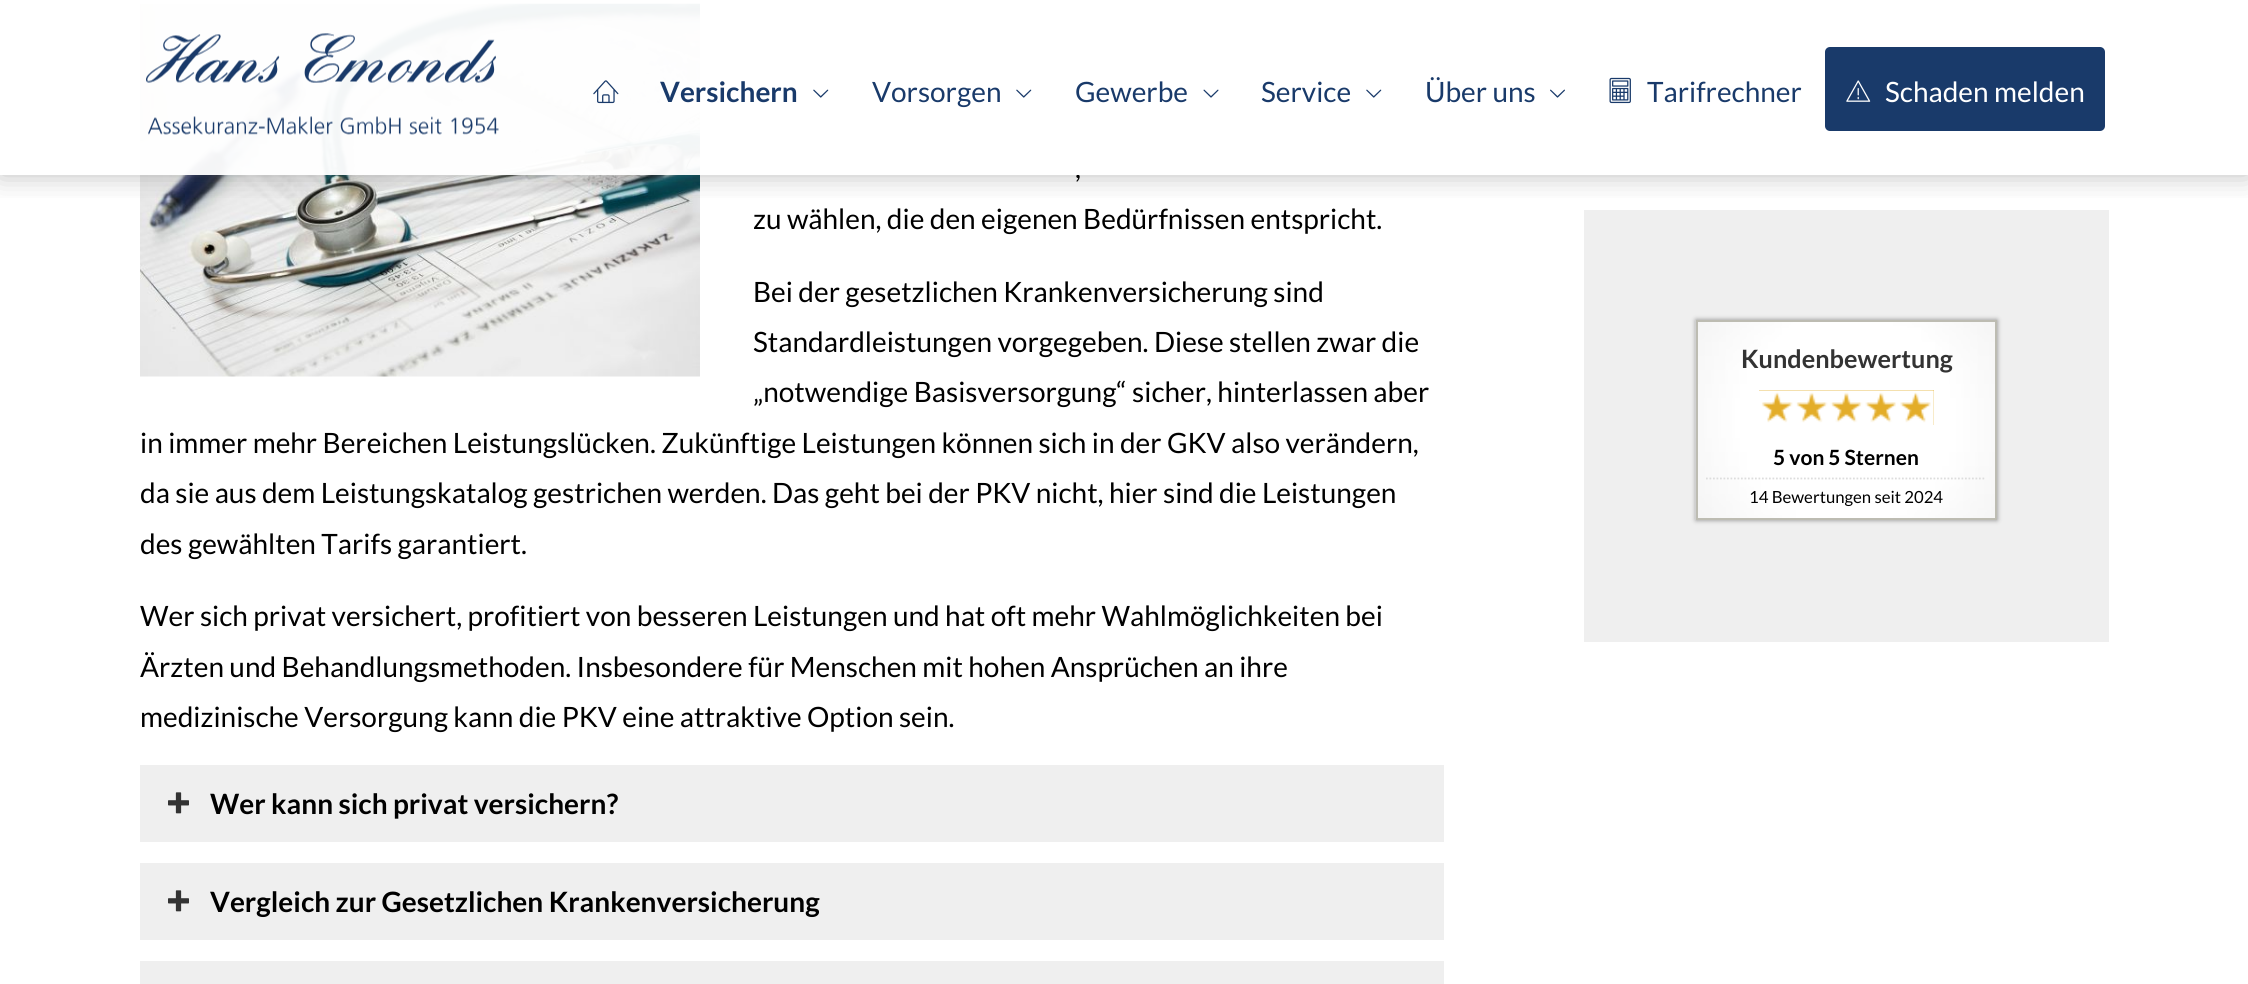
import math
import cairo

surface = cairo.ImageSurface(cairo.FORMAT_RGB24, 2248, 984)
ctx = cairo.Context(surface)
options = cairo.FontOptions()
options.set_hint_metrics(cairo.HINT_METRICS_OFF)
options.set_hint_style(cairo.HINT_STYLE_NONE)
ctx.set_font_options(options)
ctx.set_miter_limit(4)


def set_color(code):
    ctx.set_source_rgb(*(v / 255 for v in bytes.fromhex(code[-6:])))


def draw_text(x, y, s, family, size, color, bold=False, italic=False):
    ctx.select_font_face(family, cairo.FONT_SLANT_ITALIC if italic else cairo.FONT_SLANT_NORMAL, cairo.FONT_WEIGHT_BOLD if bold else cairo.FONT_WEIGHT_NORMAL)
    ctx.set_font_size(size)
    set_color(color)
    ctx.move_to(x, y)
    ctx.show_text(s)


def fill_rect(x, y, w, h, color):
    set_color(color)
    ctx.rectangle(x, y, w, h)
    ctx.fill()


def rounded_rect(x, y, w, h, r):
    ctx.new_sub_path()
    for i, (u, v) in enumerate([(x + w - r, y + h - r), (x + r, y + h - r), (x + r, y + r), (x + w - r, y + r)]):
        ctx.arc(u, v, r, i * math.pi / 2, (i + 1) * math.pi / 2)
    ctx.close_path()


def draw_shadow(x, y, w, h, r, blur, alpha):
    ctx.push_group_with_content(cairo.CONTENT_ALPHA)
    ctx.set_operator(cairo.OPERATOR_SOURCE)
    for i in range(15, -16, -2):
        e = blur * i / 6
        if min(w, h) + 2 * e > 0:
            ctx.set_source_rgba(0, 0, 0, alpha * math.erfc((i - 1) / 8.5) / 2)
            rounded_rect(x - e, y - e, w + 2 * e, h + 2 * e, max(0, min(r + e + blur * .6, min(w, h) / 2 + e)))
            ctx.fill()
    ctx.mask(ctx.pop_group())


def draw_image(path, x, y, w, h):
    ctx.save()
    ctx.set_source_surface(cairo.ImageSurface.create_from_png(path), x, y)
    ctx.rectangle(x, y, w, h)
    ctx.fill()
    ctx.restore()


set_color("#ffffff")
ctx.paint()
draw_image("assets/img8.png", 140, 3, 560, 374)
fill_rect(1584, 210, 525, 432, "#efefef")
ctx.save()
ctx.rectangle(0, 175, 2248, 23)
ctx.clip()
set_color("#5a5a5a")
draw_shadow(0, 0, 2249, 175, 0, 14, 0.4)
ctx.restore()
draw_text(1075, 178, ",", "Lato", 28, "#000000")
ctx.set_source_rgba(1, 1, 1, 0.95)
ctx.rectangle(140, 3, 939, 172)
ctx.fill()
draw_image("assets/img1.png", 146, 33, 353, 102)
draw_image("assets/img2.png", 593, 80, 26, 24)
draw_text(660, 102, "Versichern", "Lato", 28, "#193a6a", bold=True)
draw_image("assets/img3.png", 813, 89, 16, 9)
draw_text(872, 102, "Vorsorgen", "Lato", 28, "#193a6a")
draw_image("assets/img3.png", 1016, 89, 16, 9)
draw_text(1075, 102, "Gewerbe", "Lato", 28, "#193a6a")
draw_image("assets/img4.png", 1203, 89, 16, 9)
draw_text(1261, 102, "Service", "Lato", 28, "#193a6a")
draw_image("assets/img3.png", 1366, 89, 16, 9)
draw_text(1425, 102, "Über uns", "Lato", 28, "#193a6a")
draw_image("assets/img5.png", 1550, 89, 15, 9)
draw_image("assets/img6.png", 1609, 77, 22, 27)
draw_text(1647, 102, "Tarifrechner", "Lato", 28, "#193a6a")
rounded_rect(1825, 47, 280, 84, 5)
ctx.fill()
draw_image("assets/img7.png", 1846, 80, 25, 22)
draw_text(1885, 102, "Schaden melden", "Lato", 28, "#ffffff")
draw_text(753, 229, "zu wählen, die den eigenen Bedürfnissen entspricht.", "Lato", 28, "#000000")
draw_text(753, 302, "Bei der gesetzlichen Krankenversicherung sind", "Lato", 28, "#000000")
draw_text(753, 352, "Standardleistungen vorgegeben. Diese stellen zwar die", "Lato", 28, "#000000")
draw_text(753, 402, "„notwendige Basisversorgung“ sicher, hinterlassen aber", "Lato", 28, "#000000")
draw_text(140, 453, "in immer mehr Bereichen Leistungslücken. Zukünftige Leistungen können sich in der GKV also verändern,", "Lato", 28, "#000000")
draw_text(140, 503, "da sie aus dem Leistungskatalog gestrichen werden. Das geht bei der PKV nicht, hier sind die Leistungen", "Lato", 28, "#000000")
draw_text(140, 554, "des gewählten Tarifs garantiert.", "Lato", 28, "#000000")
draw_text(140, 626, "Wer sich privat versichert, profitiert von besseren Leistungen und hat oft mehr Wahlmöglichkeiten bei", "Lato", 28, "#000000")
draw_text(140, 677, "Ärzten und Behandlungsmethoden. Insbesondere für Menschen mit hohen Ansprüchen an ihre", "Lato", 28, "#000000")
draw_text(140, 727, "medizinische Versorgung kann die PKV eine attraktive Option sein.", "Lato", 28, "#000000")
fill_rect(140, 765, 1304, 77, "#efefef")
draw_image("assets/img9.png", 168, 792, 21, 22)
draw_text(210, 814, "Wer kann sich privat versichern?", "Lato", 28, "#000000", bold=True)
fill_rect(140, 863, 1304, 77, "#efefef")
draw_image("assets/img9.png", 168, 890, 21, 22)
draw_text(210, 912, "Vergleich zur Gesetzlichen Krankenversicherung", "Lato", 28, "#000000", bold=True)
fill_rect(140, 961, 1304, 23, "#efefef")
set_color("#888888")
draw_shadow(1696, 320, 301, 200, 0, 2.5, 1)
draw_image("assets/img10.png", 1695, 320, 300, 200)
ctx.rectangle(1697, 321, 299, 198)
set_color("#bdbcb2")
ctx.stroke()
draw_text(1741, 368, "Kundenbewertung", "Lato", 25.25, "#333333", bold=True)
fill_rect(1759, 390, 175, 35, "#e3ad29")
draw_image("assets/img11.png", 1759, 390, 175, 35)
draw_text(1773, 465, "5 von 5 Sternen", "Lato", 21, "#000000", bold=True)
ctx.new_path()
ctx.move_to(1706, 478.5)
ctx.line_to(1986, 478.5)
set_color("#dddddd")
ctx.set_line_width(1.8)
ctx.set_dash([1.75, 1.75])
ctx.stroke()
draw_text(1749, 503, "14 Bewertungen seit 2024", "Lato", 16.75, "#000000")
surface.write_to_png("output.png")
